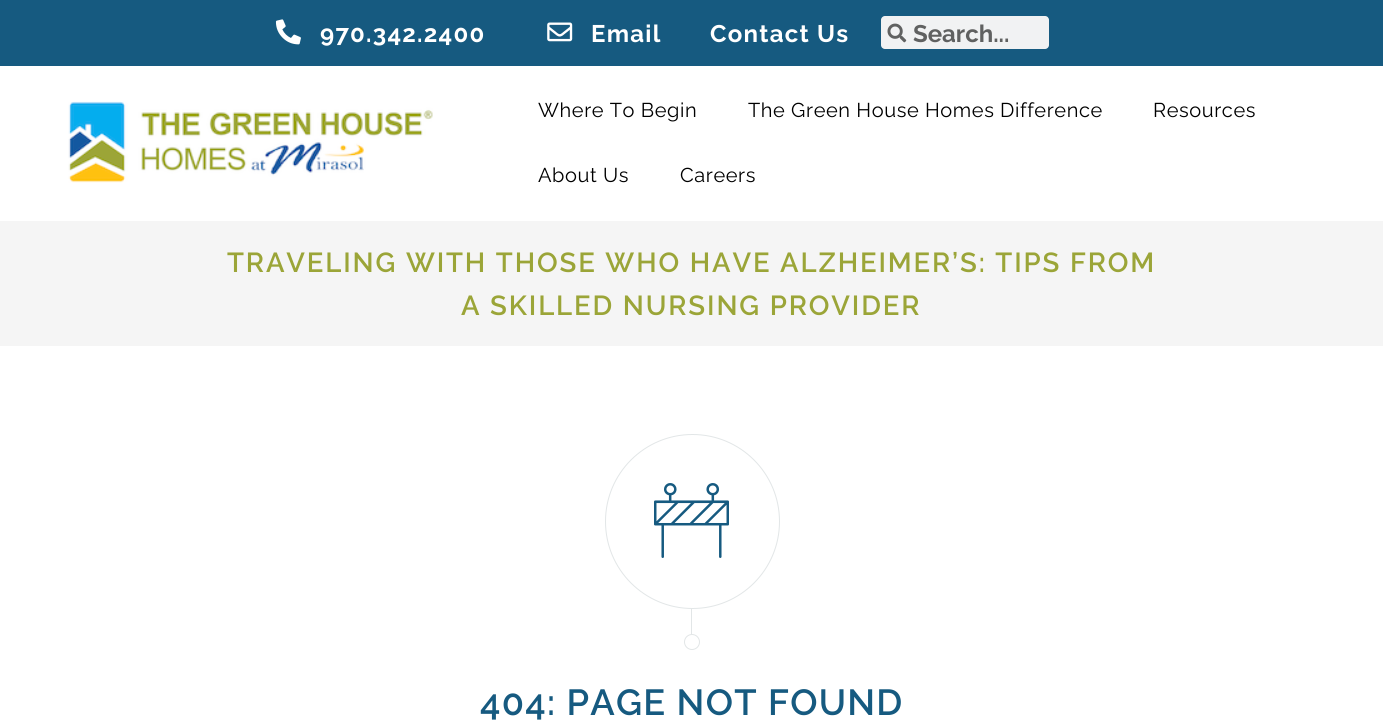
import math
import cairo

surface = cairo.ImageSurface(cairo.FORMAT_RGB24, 1383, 720)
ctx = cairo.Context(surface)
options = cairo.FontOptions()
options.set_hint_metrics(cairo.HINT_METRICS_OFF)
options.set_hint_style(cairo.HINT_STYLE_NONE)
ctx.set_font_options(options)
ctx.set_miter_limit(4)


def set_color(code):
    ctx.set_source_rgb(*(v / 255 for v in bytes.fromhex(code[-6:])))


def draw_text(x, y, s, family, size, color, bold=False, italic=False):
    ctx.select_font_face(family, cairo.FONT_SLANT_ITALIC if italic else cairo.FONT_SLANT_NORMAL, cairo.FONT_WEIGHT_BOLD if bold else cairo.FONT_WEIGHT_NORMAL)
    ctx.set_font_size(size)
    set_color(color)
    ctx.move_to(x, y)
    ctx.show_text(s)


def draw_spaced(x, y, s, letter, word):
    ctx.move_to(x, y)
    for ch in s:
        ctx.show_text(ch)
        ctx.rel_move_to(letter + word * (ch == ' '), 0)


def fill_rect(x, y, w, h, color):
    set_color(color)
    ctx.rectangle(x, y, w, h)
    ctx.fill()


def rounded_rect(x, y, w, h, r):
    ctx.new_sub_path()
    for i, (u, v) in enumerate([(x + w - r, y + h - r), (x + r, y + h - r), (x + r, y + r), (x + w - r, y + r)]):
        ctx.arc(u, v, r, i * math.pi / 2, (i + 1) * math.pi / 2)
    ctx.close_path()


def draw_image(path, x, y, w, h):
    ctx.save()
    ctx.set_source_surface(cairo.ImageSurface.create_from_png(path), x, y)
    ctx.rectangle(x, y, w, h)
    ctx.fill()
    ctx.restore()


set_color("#ffffff")
ctx.paint()
fill_rect(0, 0, 1383, 66, "#165a80")
draw_image("assets/img1.png", 275, 19, 26, 26)
ctx.select_font_face("Raleway", cairo.FONT_SLANT_NORMAL, cairo.FONT_WEIGHT_BOLD)
ctx.set_font_size(24)
set_color("#ffffff")
draw_spaced(320, 42, "970.342.2400", 1.25, 0)
draw_image("assets/img2.png", 547, 22, 26, 20)
draw_spaced(591, 42, "Email", 1.25, 0)
draw_spaced(710, 42, "Contact Us", 1.25, 0)
set_color("#f1f2f3")
rounded_rect(881, 16, 168, 33, 4)
ctx.fill()
draw_image("assets/img3.png", 887, 23, 20, 20)
draw_text(913, 42, "Search...", "Raleway", 24, "#606161", bold=True)
draw_image("assets/img4.png", 68, 101, 365, 82)
ctx.select_font_face("Raleway")
ctx.set_font_size(20)
set_color("#000000")
draw_spaced(538, 117, "Where To Begin", 0.6, 0)
draw_spaced(748, 117, "The Green House Homes Difference", 0.6, 0)
draw_spaced(1153, 117, "Resources", 0.6, 0)
draw_spaced(538, 182, "About Us", 0.6, 0)
draw_spaced(680, 182, "Careers", 0.6, 0)
fill_rect(0, 221, 1383, 125, "#f5f5f5")
ctx.select_font_face("Raleway SemiBold")
ctx.set_font_size(27.5)
set_color("#9ba538")
draw_spaced(227, 272, "TRAVELING WITH THOSE WHO HAVE ALZHEIMER’S: TIPS FROM", 1.88, 0)
draw_spaced(461, 315, "A SKILLED NURSING PROVIDER", 1.88, 0)
ctx.new_path()
ctx.arc(692.5, 521.5, 87, 0, 2 * math.pi)
set_color("#e2e6e7")
ctx.set_line_width(1)
ctx.stroke()
ctx.select_font_face("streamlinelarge")
ctx.set_font_size(75)
set_color("#165a80")
draw_spaced(654, 558, "&", 0.6, 0)
fill_rect(691, 609, 1, 25, "#e2e6e7")
ctx.new_path()
ctx.arc(692, 642, 7.5, 0, 2 * math.pi)
ctx.stroke()
ctx.select_font_face("Raleway SemiBold")
ctx.set_font_size(36.25)
set_color("#165a80")
draw_spaced(480, 715, "404: PAGE NOT FOUND", 1.25, 0)
surface.write_to_png("output.png")
